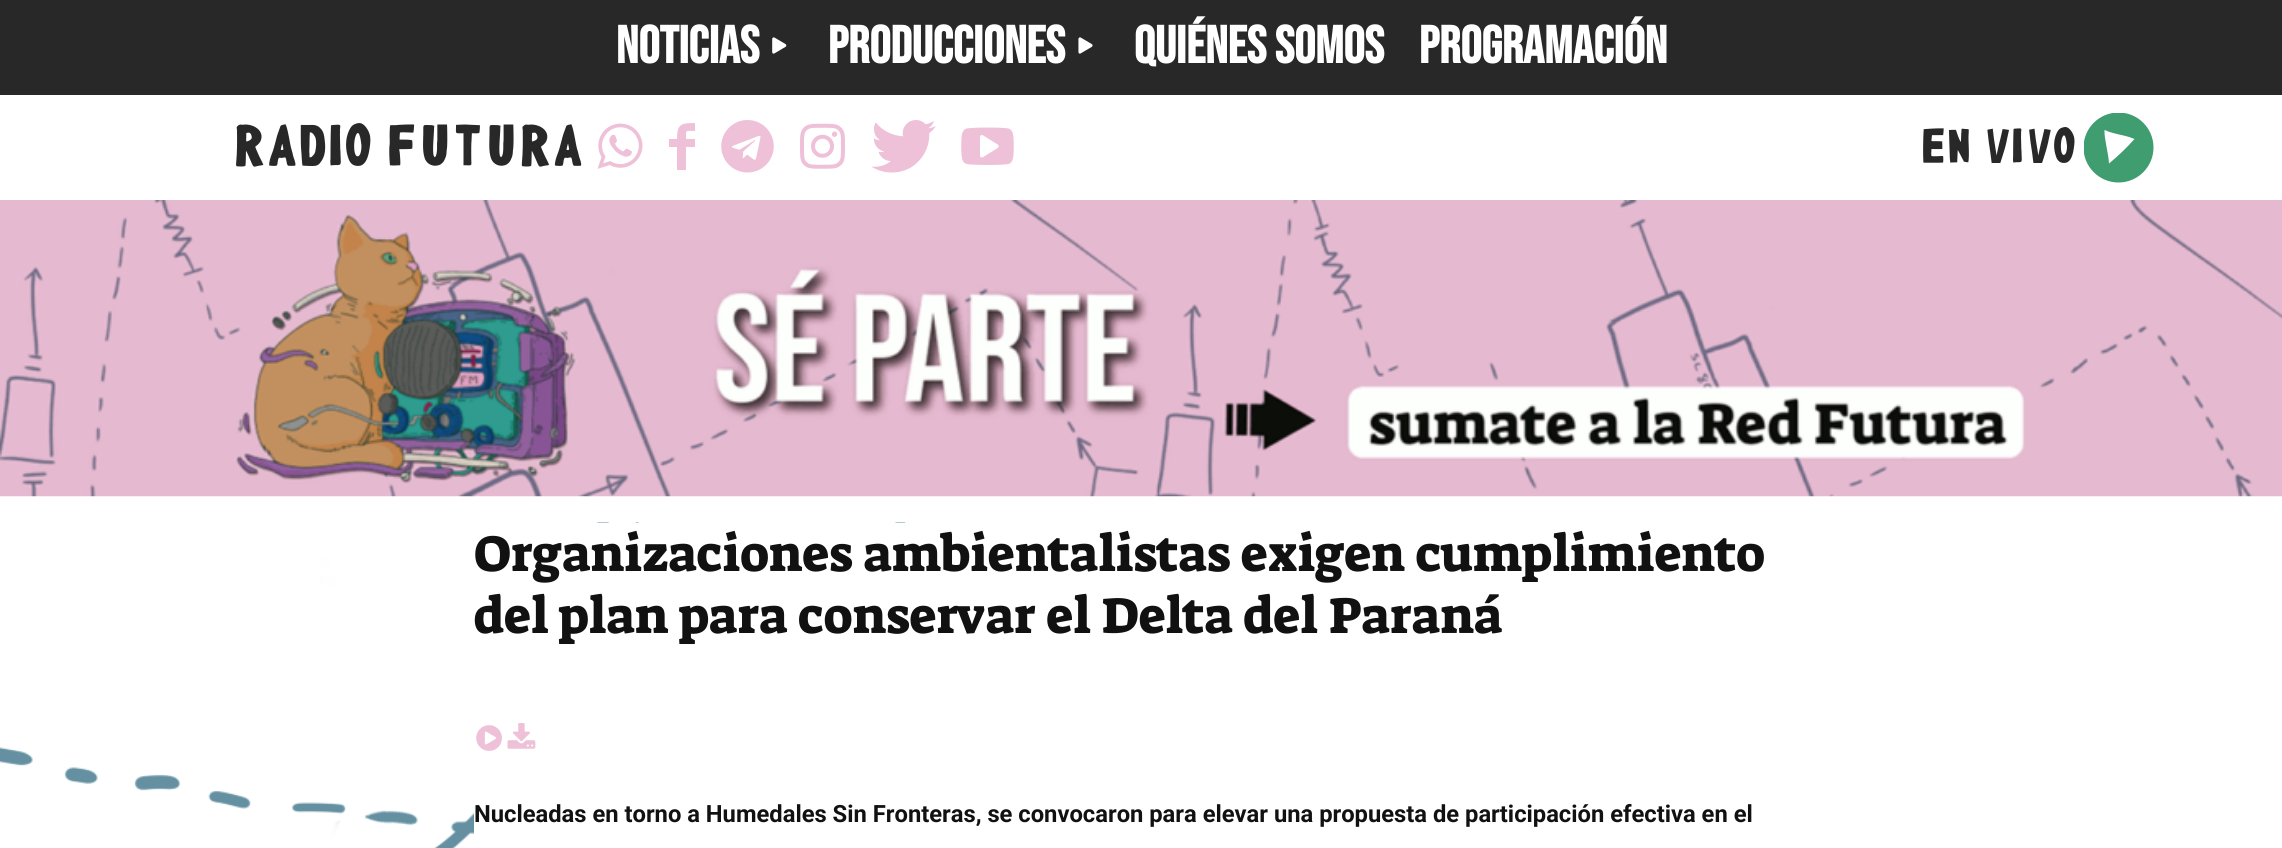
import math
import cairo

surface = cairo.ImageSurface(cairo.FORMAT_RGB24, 2282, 848)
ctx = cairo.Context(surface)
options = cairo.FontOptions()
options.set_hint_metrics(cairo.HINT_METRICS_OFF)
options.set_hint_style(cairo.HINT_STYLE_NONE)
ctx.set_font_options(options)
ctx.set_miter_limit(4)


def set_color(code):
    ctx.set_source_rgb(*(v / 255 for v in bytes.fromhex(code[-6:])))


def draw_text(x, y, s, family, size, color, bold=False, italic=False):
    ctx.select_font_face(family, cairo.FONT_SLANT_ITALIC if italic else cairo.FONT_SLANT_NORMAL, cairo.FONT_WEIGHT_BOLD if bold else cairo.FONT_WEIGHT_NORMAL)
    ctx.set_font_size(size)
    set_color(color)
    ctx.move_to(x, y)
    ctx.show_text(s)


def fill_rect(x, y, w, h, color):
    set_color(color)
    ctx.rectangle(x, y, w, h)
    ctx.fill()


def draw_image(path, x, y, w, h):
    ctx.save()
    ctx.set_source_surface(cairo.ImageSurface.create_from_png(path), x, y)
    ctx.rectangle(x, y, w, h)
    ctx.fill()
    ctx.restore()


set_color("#ffffff")
ctx.paint()
fill_rect(0, 0, 2282, 95, "#282828")
draw_text(616, 63, "NOTICIAS", "Bebas Neue", 52.5, "#ffffff", bold=True)
draw_image("assets/img1.png", 772, 37, 15, 17)
draw_text(828, 63, "PRODUCCIONES", "Bebas Neue", 52.5, "#ffffff", bold=True)
draw_image("assets/img2.png", 1078, 37, 15, 17)
draw_text(1134, 63, "QUIÉNES SOMOS", "Bebas Neue", 52.5, "#ffffff", bold=True)
draw_text(1419, 63, "PROGRAMACIÓN", "Bebas Neue", 52.5, "#ffffff", bold=True)
draw_text(232, 166, "RADIO FUTURA", "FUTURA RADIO", 52.5, "#282828")
draw_image("assets/img3.png", 597, 123, 46, 46)
set_color("#eec1d8")
ctx.new_path()
ctx.move_to(695, 131)
ctx.curve_to(685, 131, 686, 129, 686, 139)
ctx.line_to(695, 139)
ctx.line_to(695, 147)
ctx.line_to(686, 147)
ctx.line_to(686, 170)
ctx.line_to(677, 170)
ctx.line_to(677, 147)
ctx.line_to(669, 147)
ctx.line_to(669, 139)
ctx.line_to(677, 139)
ctx.curve_to(677, 124, 681, 123, 695, 123)
ctx.close_path()
ctx.fill()
draw_image("assets/img4.png", 721, 120, 53, 53)
draw_image("assets/img5.png", 800, 123, 45, 46)
draw_image("assets/img6.png", 871, 120, 65, 53)
draw_image("assets/img7.png", 961, 127, 53, 38)
draw_text(1921, 163, "EN VIVO", "FUTURA RADIO", 44, "#282828")
ctx.save()
ctx.rectangle(2084, 113, 70, 70)
ctx.clip()
set_color("#3f9d70")
ctx.arc(2118.5, 147.5, 35, 0, 2 * math.pi)
ctx.fill()
ctx.restore()
set_color("#ffffff")
ctx.new_path()
ctx.move_to(2104.5, 130)
ctx.curve_to(2104, 138.5, 2108.5, 153, 2109, 163.5)
ctx.curve_to(2117.5, 156.5, 2127, 147.5, 2134.5, 139)
ctx.curve_to(2124, 134.5, 2116, 135, 2104.5, 130)
ctx.fill()
draw_image("assets/img8.png", 0, 200, 2282, 297)
draw_image("assets/img9.png", 0, 522, 906, 326)
fill_rect(474, 523, 432, 325, "#ffffff")
draw_text(474, 571, "Organizaciones ambientalistas exigen cumplimiento", "Suez One", 51.25, "#111111")
draw_text(474, 633, "del plan para conservar el Delta del Paraná", "Suez One", 51.25, "#111111")
draw_image("assets/img10.png", 476, 725, 26, 26)
draw_image("assets/img11.png", 507, 723, 29, 26)
draw_text(474, 822, "Nucleadas en torno a Humedales Sin Fronteras, se convocaron para elevar una propuesta de participación efectiva en el", "Roboto", 23.75, "#111111", bold=True)
surface.write_to_png("output.png")
